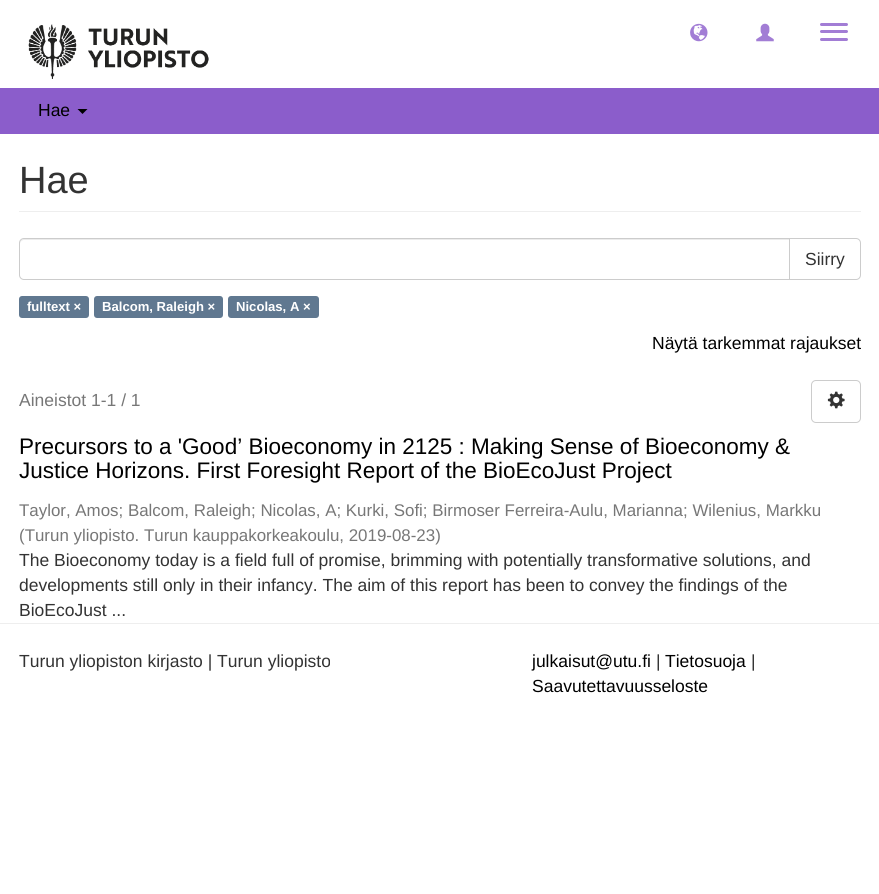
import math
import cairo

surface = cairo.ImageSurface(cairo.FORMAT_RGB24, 879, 894)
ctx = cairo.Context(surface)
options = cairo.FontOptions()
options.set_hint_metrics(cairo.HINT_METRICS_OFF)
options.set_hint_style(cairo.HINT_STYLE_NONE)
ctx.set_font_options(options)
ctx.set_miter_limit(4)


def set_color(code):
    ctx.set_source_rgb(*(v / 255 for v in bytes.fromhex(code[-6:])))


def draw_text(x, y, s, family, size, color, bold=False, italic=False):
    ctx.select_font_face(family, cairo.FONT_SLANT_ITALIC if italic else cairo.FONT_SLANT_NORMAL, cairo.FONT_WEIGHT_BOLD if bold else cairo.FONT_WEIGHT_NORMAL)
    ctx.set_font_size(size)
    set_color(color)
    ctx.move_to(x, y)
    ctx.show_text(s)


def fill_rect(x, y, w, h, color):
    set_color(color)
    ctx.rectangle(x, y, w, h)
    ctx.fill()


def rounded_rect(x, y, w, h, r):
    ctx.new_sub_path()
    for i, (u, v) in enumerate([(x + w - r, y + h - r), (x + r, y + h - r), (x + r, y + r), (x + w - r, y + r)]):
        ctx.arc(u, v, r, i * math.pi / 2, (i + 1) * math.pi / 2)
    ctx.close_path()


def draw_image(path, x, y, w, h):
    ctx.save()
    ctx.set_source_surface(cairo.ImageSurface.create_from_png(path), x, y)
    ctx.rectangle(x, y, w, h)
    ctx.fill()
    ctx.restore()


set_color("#ffffff")
ctx.paint()
draw_image("assets/img1.png", 28, 24, 181, 55)
draw_image("assets/img2.png", 690, 23, 18, 19)
draw_image("assets/img3.png", 756, 23, 18, 19)
set_color("#a27dd5")
rounded_rect(820, 23, 28, 3, 1.5)
ctx.fill()
rounded_rect(820, 30, 28, 3, 1.5)
ctx.fill()
rounded_rect(820, 38, 28, 3, 1.5)
ctx.fill()
fill_rect(0, 88, 879, 46, "#8b5dcb")
draw_text(38, 116, "Hae", "Liberation Sans", 17.5, "#000000")
ctx.new_path()
ctx.move_to(77.5, 109)
ctx.line_to(87.5, 109)
ctx.line_to(82.5, 114)
ctx.close_path()
ctx.fill()
fill_rect(19, 211, 842, 1, "#eeeeee")
draw_text(19, 193, "Hae", "Liberation Sans", 38, "#333333")
ctx.new_path()
ctx.move_to(789.5, 238.5)
ctx.line_to(856, 238.5)
ctx.curve_to(858.5, 238.5, 860.5, 240.5, 860.5, 243)
ctx.line_to(860.5, 275)
ctx.curve_to(860.5, 277.5, 858.5, 279.5, 856, 279.5)
ctx.line_to(789.5, 279.5)
ctx.close_path()
set_color("#cccccc")
ctx.set_line_width(1)
ctx.stroke()
set_color("#ffffff")
ctx.new_path()
ctx.move_to(24, 238)
ctx.line_to(790, 238)
ctx.line_to(790, 280)
ctx.line_to(24, 280)
ctx.curve_to(21, 280, 19, 278, 19, 275)
ctx.line_to(19, 243)
ctx.curve_to(19, 240, 21, 238, 24, 238)
ctx.close_path()
ctx.fill()
set_color("#ececec")
ctx.new_path()
ctx.move_to(24, 240)
ctx.line_to(789, 240)
ctx.line_to(789, 239)
ctx.line_to(24, 239)
ctx.curve_to(22, 239, 20, 241, 20, 243)
ctx.line_to(20, 244)
ctx.curve_to(20, 242, 22, 240, 24, 240)
ctx.close_path()
ctx.fill()
ctx.new_path()
ctx.move_to(24, 238.5)
ctx.line_to(789.5, 238.5)
ctx.line_to(789.5, 279.5)
ctx.line_to(24, 279.5)
ctx.curve_to(21.5, 279.5, 19.5, 277.5, 19.5, 275)
ctx.line_to(19.5, 243)
ctx.curve_to(19.5, 240.5, 21.5, 238.5, 24, 238.5)
ctx.close_path()
set_color("#cccccc")
ctx.stroke()
draw_text(805, 265, "Siirry", "Liberation Sans", 17.5, "#333333")
set_color("#607890")
rounded_rect(19, 296, 70, 22, 3)
ctx.fill()
draw_text(27, 311, "fulltext ×", "Liberation Sans", 13.1, "#ffffff", bold=True)
set_color("#607890")
rounded_rect(94, 296, 129, 22, 3)
ctx.fill()
draw_text(102, 311, "Balcom, Raleigh ×", "Liberation Sans", 13.1, "#ffffff", bold=True)
set_color("#607890")
rounded_rect(228, 296, 91, 22, 3)
ctx.fill()
draw_text(236, 311, "Nicolas, A ×", "Liberation Sans", 13.1, "#ffffff", bold=True)
draw_text(652, 349, "Näytä tarkemmat rajaukset", "Liberation Sans", 17.5, "#000000")
draw_text(19, 406, "Aineistot 1-1 / 1", "Liberation Sans", 17.5, "#777777")
rounded_rect(811.5, 380.5, 49, 42, 4.5)
set_color("#cccccc")
ctx.stroke()
draw_image("assets/img4.png", 827, 391, 18, 18)
draw_text(19, 454, "Precursors to a 'Good’ Bioeconomy in 2125 : Making Sense of Bioeconomy &", "Liberation Sans", 22.5, "#000000")
draw_text(19, 478, "Justice Horizons. First Foresight Report of the BioEcoJust Project", "Liberation Sans", 22.5, "#000000")
draw_text(19, 516, "Taylor, Amos; Balcom, Raleigh; Nicolas, A; Kurki, Sofi; Birmoser Ferreira-Aulu, Marianna; Wilenius, Markku", "Liberation Sans", 16.9, "#777777")
draw_text(19, 541, "(Turun yliopisto. Turun kauppakorkeakoulu, 2019-08-23)", "Liberation Sans", 16.9, "#777777")
draw_text(19, 566, "The Bioeconomy today is a field full of promise, brimming with potentially transformative solutions, and", "Liberation Sans", 17.5, "#333333")
draw_text(19, 591, "developments still only in their infancy. The aim of this report has been to convey the findings of the", "Liberation Sans", 17.5, "#333333")
draw_text(19, 616, "BioEcoJust ...", "Liberation Sans", 17.5, "#333333")
fill_rect(0, 623, 879, 1, "#eeeeee")
draw_text(19, 667, "Turun yliopiston kirjasto | Turun yliopisto", "Liberation Sans", 17.5, "#333333")
draw_text(532, 667, "julkaisut@utu.fi", "Liberation Sans", 17.5, "#000000")
draw_text(656, 667, "|", "Liberation Sans", 17.5, "#333333")
draw_text(665, 667, "Tietosuoja", "Liberation Sans", 17.5, "#000000")
draw_text(751, 667, "|", "Liberation Sans", 17.5, "#333333")
draw_text(532, 692, "Saavutettavuusseloste", "Liberation Sans", 17.5, "#000000")
surface.write_to_png("output.png")
